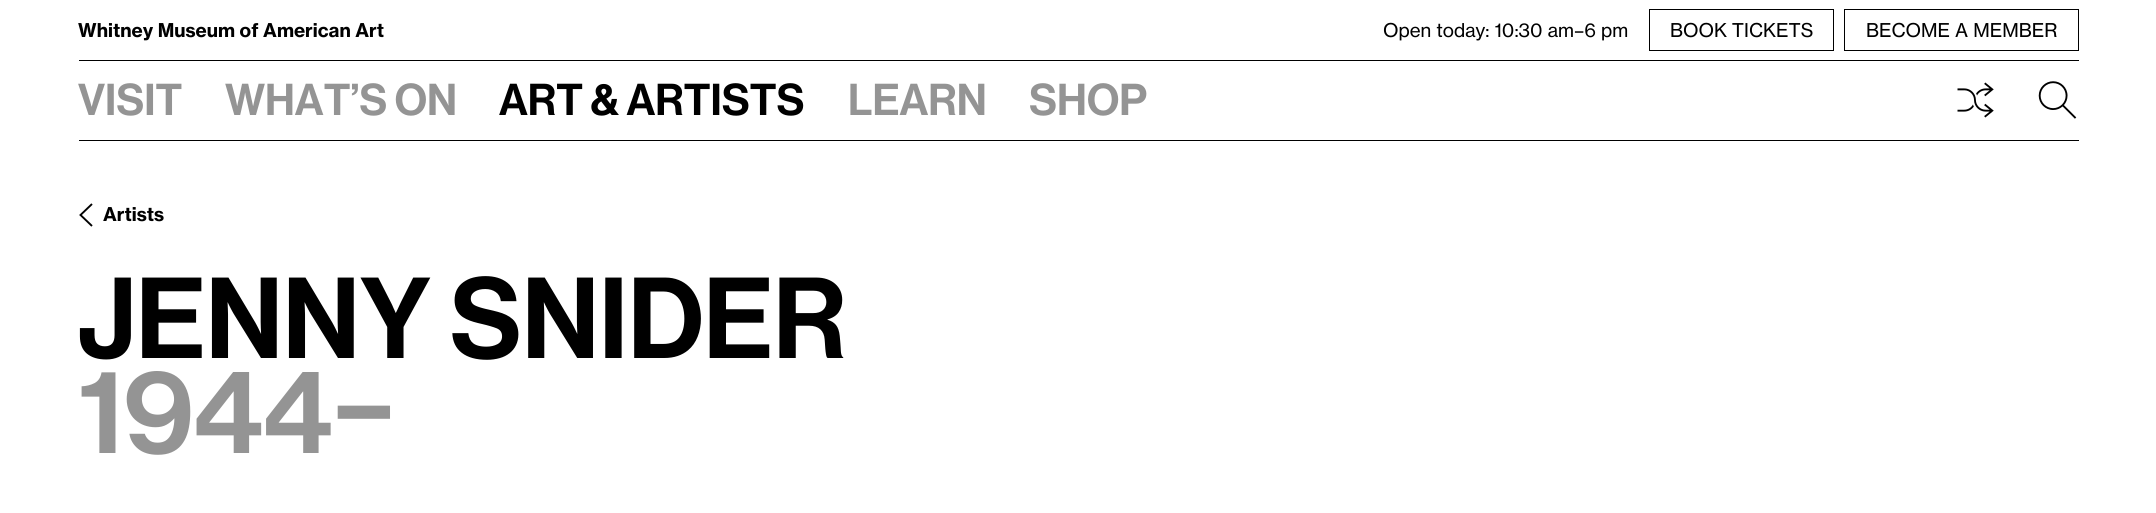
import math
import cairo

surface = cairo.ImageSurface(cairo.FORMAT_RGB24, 2156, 513)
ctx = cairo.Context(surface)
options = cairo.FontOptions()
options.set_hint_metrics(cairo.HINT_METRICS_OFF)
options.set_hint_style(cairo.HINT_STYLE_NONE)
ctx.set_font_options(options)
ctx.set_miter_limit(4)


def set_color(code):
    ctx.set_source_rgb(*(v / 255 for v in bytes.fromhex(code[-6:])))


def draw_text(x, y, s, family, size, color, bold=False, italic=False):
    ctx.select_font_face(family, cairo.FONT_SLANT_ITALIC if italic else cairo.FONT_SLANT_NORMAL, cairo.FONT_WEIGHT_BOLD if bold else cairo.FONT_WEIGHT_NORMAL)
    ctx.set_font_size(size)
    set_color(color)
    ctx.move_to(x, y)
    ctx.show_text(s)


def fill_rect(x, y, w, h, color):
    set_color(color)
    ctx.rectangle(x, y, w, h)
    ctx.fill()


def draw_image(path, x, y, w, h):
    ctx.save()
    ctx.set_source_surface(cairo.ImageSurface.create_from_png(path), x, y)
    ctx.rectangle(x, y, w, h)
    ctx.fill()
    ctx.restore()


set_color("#ffffff")
ctx.paint()
fill_rect(79, 60, 2000, 1, "#000000")
draw_text(78, 37, "Whitney Museum of American Art", "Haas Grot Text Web", 18.75, "#000000", bold=True)
draw_text(1383, 37, "Open today: 10:30 am–6 pm", "Haas Grot Text Web", 18.75, "#000000")
ctx.rectangle(1649.5, 9.5, 184, 41)
ctx.set_line_width(1)
ctx.stroke()
draw_text(1670, 37, "BOOK TICKETS", "Haas Grot Text Web", 18.75, "#000000")
ctx.rectangle(1844.5, 9.5, 234, 41)
ctx.stroke()
draw_text(1866, 37, "BECOME A MEMBER", "Haas Grot Text Web", 18.75, "#000000")
fill_rect(79, 140, 2000, 1, "#000000")
draw_text(78, 115, "Visit", "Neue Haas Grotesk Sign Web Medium", 43.75, "#949494")
draw_text(225, 115, "What’s on", "Neue Haas Grotesk Sign Web Medium", 43.75, "#949494")
draw_text(499, 115, "Art & Artists", "Neue Haas Grotesk Sign Web Medium", 43.75, "#000000")
draw_text(848, 115, "Learn", "Neue Haas Grotesk Sign Web Medium", 43.75, "#949494")
draw_text(1029, 115, "Shop", "Neue Haas Grotesk Sign Web Medium", 43.75, "#949494")
draw_image("assets/img1.png", 1957, 82, 37, 36)
draw_image("assets/img2.png", 2038, 81, 39, 38)
ctx.new_path()
ctx.move_to(92, 204)
ctx.line_to(80.5, 215)
ctx.line_to(92, 226)
set_color("#000000")
ctx.set_line_width(1.9)
ctx.stroke()
draw_text(103, 221, "Artists", "Haas Grot Text Web", 18.75, "#000000", bold=True)
draw_text(78, 358, "Jenny Snider", "Neue Haas Grotesk Sign Web Medium", 112.5, "#000000")
draw_text(78, 453, "1944–", "Neue Haas Grotesk Sign Web Medium", 112.5, "#949494")
surface.write_to_png("output.png")
